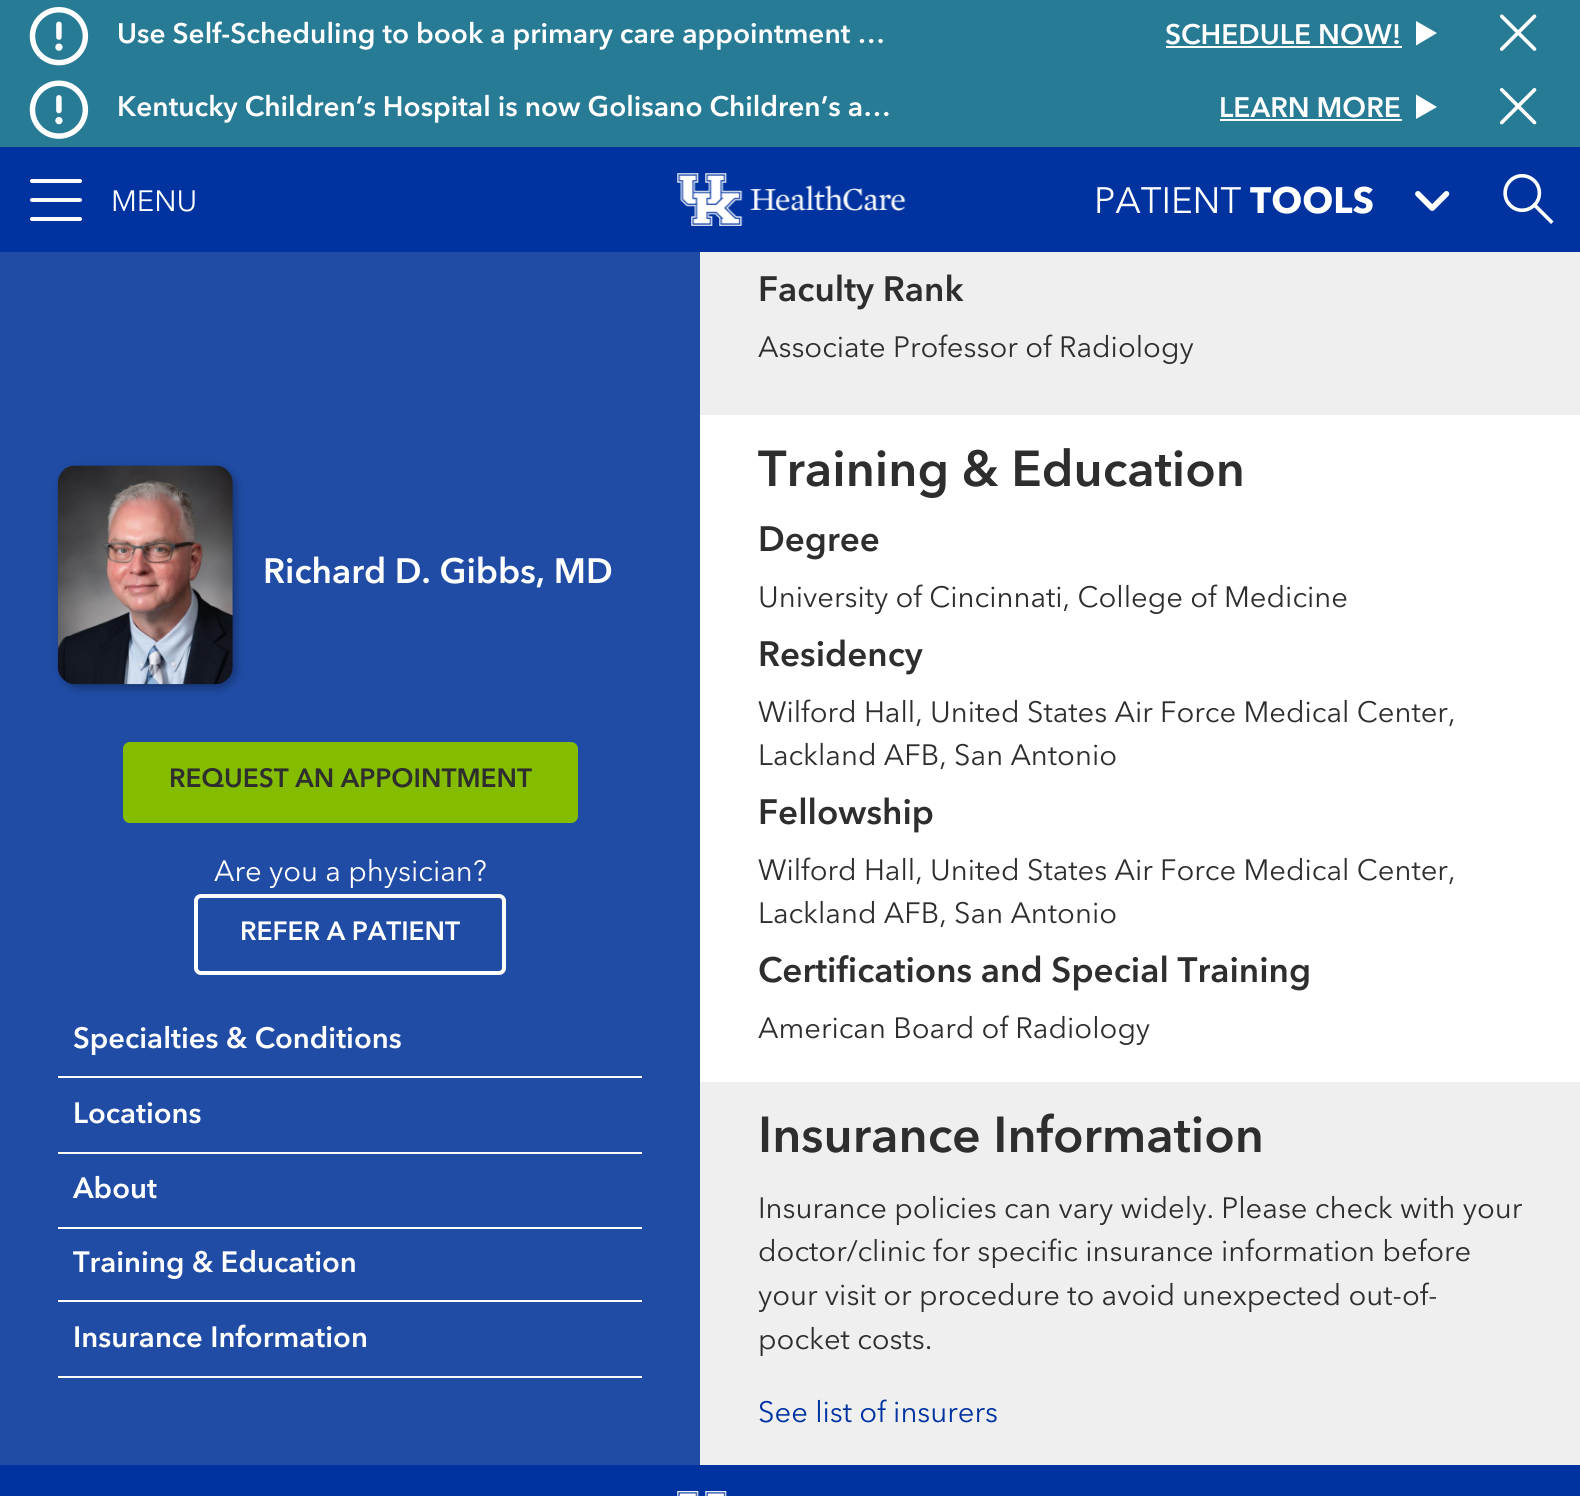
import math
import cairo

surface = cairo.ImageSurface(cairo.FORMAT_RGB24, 1580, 1496)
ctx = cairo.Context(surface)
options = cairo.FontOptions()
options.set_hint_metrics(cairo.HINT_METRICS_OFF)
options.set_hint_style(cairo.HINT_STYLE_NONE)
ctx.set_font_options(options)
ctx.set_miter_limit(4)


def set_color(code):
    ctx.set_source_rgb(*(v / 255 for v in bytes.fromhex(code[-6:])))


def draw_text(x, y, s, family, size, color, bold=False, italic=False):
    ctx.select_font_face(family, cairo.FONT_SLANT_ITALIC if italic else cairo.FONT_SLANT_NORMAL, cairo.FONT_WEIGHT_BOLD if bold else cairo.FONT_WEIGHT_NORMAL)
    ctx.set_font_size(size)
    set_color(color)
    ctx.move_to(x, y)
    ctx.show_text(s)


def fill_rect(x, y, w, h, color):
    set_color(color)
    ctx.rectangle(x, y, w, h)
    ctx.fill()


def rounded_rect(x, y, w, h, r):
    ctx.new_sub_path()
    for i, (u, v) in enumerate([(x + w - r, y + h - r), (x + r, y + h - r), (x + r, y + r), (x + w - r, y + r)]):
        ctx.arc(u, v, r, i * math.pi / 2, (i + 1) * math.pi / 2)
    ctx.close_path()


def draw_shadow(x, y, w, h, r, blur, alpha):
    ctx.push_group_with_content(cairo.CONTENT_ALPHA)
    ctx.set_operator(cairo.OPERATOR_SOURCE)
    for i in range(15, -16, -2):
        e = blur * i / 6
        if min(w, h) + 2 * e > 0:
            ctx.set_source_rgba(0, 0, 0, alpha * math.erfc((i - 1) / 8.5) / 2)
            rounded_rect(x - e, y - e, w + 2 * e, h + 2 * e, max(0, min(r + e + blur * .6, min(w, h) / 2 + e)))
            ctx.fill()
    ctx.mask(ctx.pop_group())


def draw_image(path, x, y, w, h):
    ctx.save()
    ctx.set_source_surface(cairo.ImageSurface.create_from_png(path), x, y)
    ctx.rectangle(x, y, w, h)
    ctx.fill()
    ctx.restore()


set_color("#ffffff")
ctx.paint()
fill_rect(0, 0, 1580, 147, "#277b94")
draw_image("assets/img1.png", 29, 7, 60, 59)
draw_text(117, 43, "Use Self-Scheduling to book a primary care appointment …", "Avenir Next SemiBold", 28, "#ffffff")
draw_text(1165, 44, "SCHEDULE NOW!", "Avenir Next SemiBold", 28, "#ffffff")
fill_rect(1166, 46, 236, 2, "#ffffff")
ctx.new_path()
ctx.move_to(1437, 33)
ctx.line_to(1416, 45.5)
ctx.line_to(1416, 21)
ctx.close_path()
ctx.fill()
draw_image("assets/img2.png", 1499, 14, 38, 37)
draw_image("assets/img3.png", 29, 80, 60, 59)
draw_text(117, 116, "Kentucky Children’s Hospital is now Golisano Children’s a…", "Avenir Next SemiBold", 28, "#ffffff")
draw_text(1219, 117, "LEARN MORE", "Avenir Next SemiBold", 28, "#ffffff")
fill_rect(1220, 119, 182, 2, "#ffffff")
ctx.new_path()
ctx.move_to(1437, 107)
ctx.line_to(1416, 119)
ctx.line_to(1416, 94.5)
ctx.close_path()
ctx.fill()
draw_image("assets/img4.png", 1499, 88, 38, 37)
fill_rect(0, 147, 1580, 105, "#0033a0")
set_color("#ffffff")
rounded_rect(30, 179, 52, 4, 2)
ctx.fill()
rounded_rect(30, 198, 52, 4, 2)
ctx.fill()
rounded_rect(30, 217, 52, 4, 2)
ctx.fill()
draw_text(111, 211, "MENU", "Avenir Next", 29.2, "#ffffff")
draw_image("assets/img5.png", 677, 173, 229, 53)
draw_text(1094, 213, "PATIENT", "Avenir Next", 36.5, "#ffffff")
draw_text(1250, 213, "TOOLS", "Avenir Next", 36.5, "#ffffff", bold=True)
draw_image("assets/img6.png", 1415, 191, 35, 20)
ctx.new_path()
ctx.move_to(1534.5, 181)
ctx.curve_to(1541, 187.5, 1541, 198.5, 1534.5, 205)
ctx.curve_to(1527.5, 212, 1516.5, 212, 1510, 205)
ctx.curve_to(1503.5, 198.5, 1503.5, 187.5, 1510, 181)
ctx.curve_to(1516.5, 174, 1527.5, 174, 1534.5, 181)
ctx.close_path()
ctx.set_line_width(3.6)
ctx.stroke()
ctx.new_path()
ctx.move_to(1534.5, 205)
ctx.line_to(1551, 221.5)
ctx.set_line_cap(cairo.LINE_CAP_SQUARE)
ctx.stroke()
fill_rect(0, 252, 700, 1213, "#204ca5")
set_color("#000000")
draw_shadow(61, 469, 175, 219, 18, 4.5, 0.32)
draw_image("assets/img7.png", 57, 465, 176, 220)
draw_text(263, 583, "Richard D. Gibbs, MD", "Avenir Next SemiBold", 35, "#ffffff")
set_color("#84bd00")
rounded_rect(125, 744, 451, 77, 5)
ctx.fill_preserve()
ctx.set_line_width(4)
ctx.set_line_cap(cairo.LINE_CAP_BUTT)
ctx.stroke()
draw_text(169, 787, "REQUEST AN APPOINTMENT", "Avenir Next SemiBold", 26.25, "#2e2e2e")
draw_text(214, 881, "Are you a physician?", "Avenir Next", 29.2, "#ffffff")
rounded_rect(196, 896, 308, 77, 5)
ctx.stroke()
draw_text(240, 940, "REFER A PATIENT", "Avenir Next SemiBold", 26.25, "#ffffff")
fill_rect(58, 1076, 584, 2, "#ffffff")
draw_text(73, 1048, "Specialties & Conditions", "Avenir Next SemiBold", 29.2, "#ffffff")
fill_rect(58, 1152, 584, 2, "#ffffff")
draw_text(73, 1123, "Locations", "Avenir Next SemiBold", 29.2, "#ffffff")
fill_rect(58, 1227, 584, 2, "#ffffff")
draw_text(73, 1198, "About", "Avenir Next SemiBold", 29.2, "#ffffff")
fill_rect(58, 1300, 584, 2, "#ffffff")
draw_text(73, 1272, "Training & Education", "Avenir Next SemiBold", 29.2, "#ffffff")
fill_rect(58, 1376, 584, 2, "#ffffff")
draw_text(73, 1347, "Insurance Information", "Avenir Next SemiBold", 29.2, "#ffffff")
fill_rect(700, 252, 880, 163, "#efefef")
draw_text(758, 301, "Faculty Rank", "Avenir Next SemiBold", 35, "#2e2e2e")
draw_text(758, 357, "Associate Professor of Radiology", "Avenir Next", 29.2, "#2e2e2e")
draw_text(758, 486, "Training & Education", "Avenir Next SemiBold", 50.1, "#2e2e2e")
draw_text(758, 551, "Degree", "Avenir Next SemiBold", 35, "#2e2e2e")
draw_text(758, 607, "University of Cincinnati, College of Medicine", "Avenir Next", 29.2, "#2e2e2e")
draw_text(758, 666, "Residency", "Avenir Next SemiBold", 35, "#2e2e2e")
draw_text(758, 722, "Wilford Hall, United States Air Force Medical Center,", "Avenir Next", 29.2, "#2e2e2e")
draw_text(758, 765, "Lackland AFB, San Antonio", "Avenir Next", 29.2, "#2e2e2e")
draw_text(758, 824, "Fellowship", "Avenir Next SemiBold", 35, "#2e2e2e")
draw_text(758, 880, "Wilford Hall, United States Air Force Medical Center,", "Avenir Next", 29.2, "#2e2e2e")
draw_text(758, 923, "Lackland AFB, San Antonio", "Avenir Next", 29.2, "#2e2e2e")
draw_text(758, 982, "Certifications and Special Training", "Avenir Next SemiBold", 35, "#2e2e2e")
draw_text(758, 1038, "American Board of Radiology", "Avenir Next", 29.2, "#2e2e2e")
fill_rect(700, 1082, 880, 383, "#efefef")
draw_text(758, 1152, "Insurance Information", "Avenir Next SemiBold", 50.1, "#2e2e2e")
draw_text(758, 1218, "Insurance policies can vary widely. Please check with your", "Avenir Next", 29.2, "#2e2e2e")
draw_text(758, 1261, "doctor/clinic", "Avenir Next", 29.2, "#2e2e2e")
draw_text(933, 1261, "for specific insurance information before", "Avenir Next", 29.2, "#2e2e2e")
draw_text(758, 1305, "your visit or procedure to avoid", "Avenir Next", 29.2, "#2e2e2e")
draw_text(1182, 1305, "unexpected out-of-", "Avenir Next", 29.2, "#2e2e2e")
draw_text(758, 1349, "pocket costs.", "Avenir Next", 29.2, "#2e2e2e")
draw_text(758, 1422, "See list of insurers", "Avenir Next", 29.2, "#0033a0")
fill_rect(0, 1465, 1580, 31, "#0033a0")
draw_image("assets/img8.png", 677, 1491, 50, 5)
surface.write_to_png("output.png")
